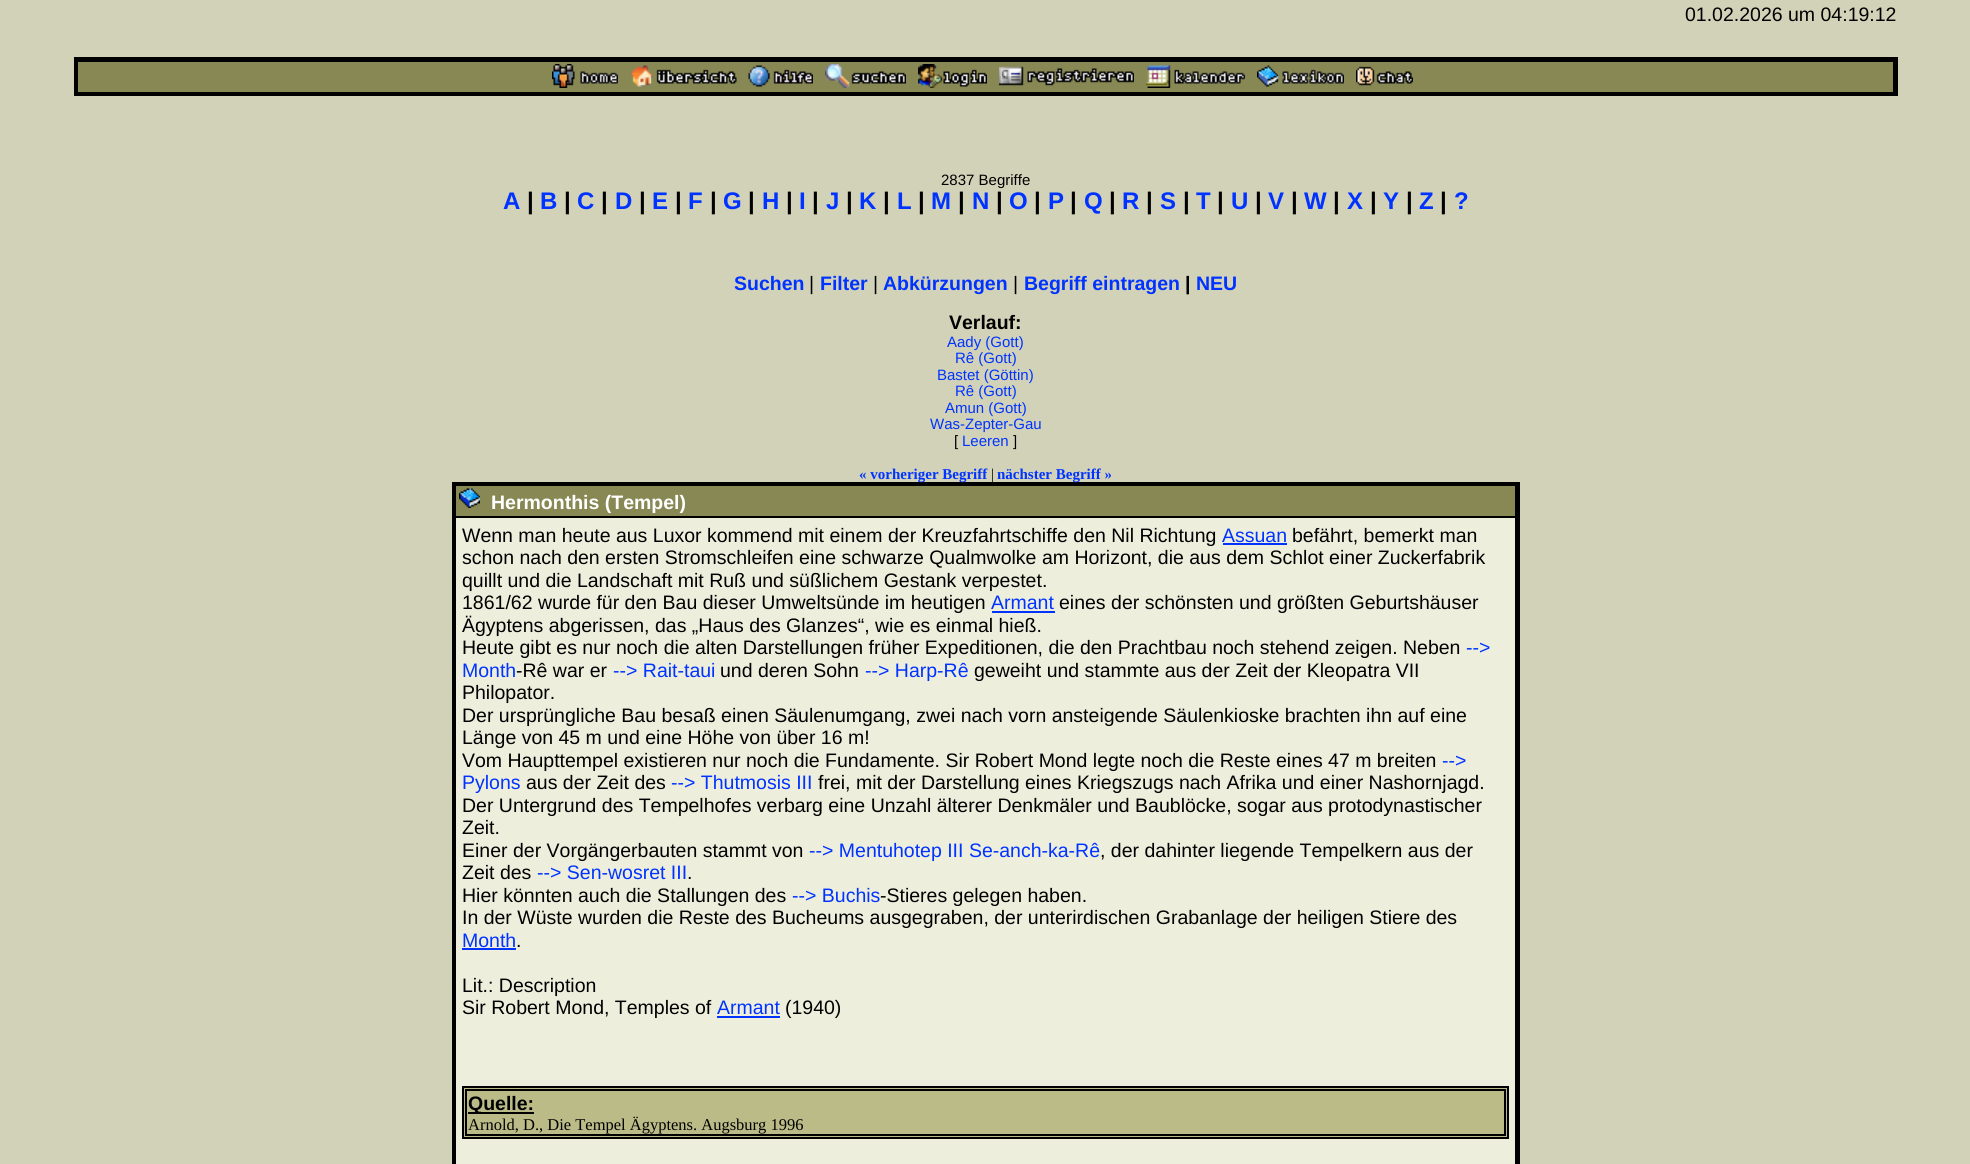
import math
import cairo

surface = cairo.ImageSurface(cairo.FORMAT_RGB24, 1970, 1164)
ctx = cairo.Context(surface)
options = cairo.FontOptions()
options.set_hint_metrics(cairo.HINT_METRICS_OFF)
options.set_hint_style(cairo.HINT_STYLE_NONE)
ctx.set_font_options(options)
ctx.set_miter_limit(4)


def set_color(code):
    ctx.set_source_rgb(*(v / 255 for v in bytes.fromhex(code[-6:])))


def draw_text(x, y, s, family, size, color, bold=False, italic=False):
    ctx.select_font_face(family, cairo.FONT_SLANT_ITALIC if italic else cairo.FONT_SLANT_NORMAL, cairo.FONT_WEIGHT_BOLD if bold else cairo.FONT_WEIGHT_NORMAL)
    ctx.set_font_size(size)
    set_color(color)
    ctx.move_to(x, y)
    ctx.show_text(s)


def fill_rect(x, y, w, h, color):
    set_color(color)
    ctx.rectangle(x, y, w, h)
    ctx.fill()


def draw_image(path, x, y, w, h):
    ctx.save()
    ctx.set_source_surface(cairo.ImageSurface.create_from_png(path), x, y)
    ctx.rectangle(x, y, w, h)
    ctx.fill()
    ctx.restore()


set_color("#d2d2b9")
ctx.paint()
draw_text(1685, 21, "01.02.2026 um 04:19:12", "Liberation Sans", 19.5, "#000000")
fill_rect(74, 57, 1824, 39, "#000000")
fill_rect(78, 62, 1815, 30, "#888855")
draw_image("assets/img1.png", 552, 64, 66, 24)
draw_image("assets/img2.png", 630, 65, 107, 22)
draw_image("assets/img3.png", 748, 65, 65, 22)
draw_image("assets/img4.png", 825, 64, 81, 24)
draw_image("assets/img5.png", 918, 64, 69, 24)
draw_image("assets/img6.png", 999, 66, 135, 20)
draw_image("assets/img7.png", 1146, 65, 99, 23)
draw_image("assets/img8.png", 1257, 65, 87, 22)
draw_image("assets/img9.png", 1356, 66, 57, 20)
draw_text(941, 185, "2837 Begriffe", "Liberation Sans", 15, "#000000")
draw_text(503, 209, "A", "Liberation Sans", 24, "#0033ff", bold=True)
draw_text(527, 209, "|", "Liberation Sans", 24, "#000000", bold=True)
draw_text(540, 209, "B", "Liberation Sans", 24, "#0033ff", bold=True)
draw_text(564, 209, "|", "Liberation Sans", 24, "#000000", bold=True)
draw_text(577, 209, "C", "Liberation Sans", 24, "#0033ff", bold=True)
draw_text(601, 209, "|", "Liberation Sans", 24, "#000000", bold=True)
draw_text(615, 209, "D", "Liberation Sans", 24, "#0033ff", bold=True)
draw_text(639, 209, "|", "Liberation Sans", 24, "#000000", bold=True)
draw_text(652, 209, "E", "Liberation Sans", 24, "#0033ff", bold=True)
draw_text(675, 209, "|", "Liberation Sans", 24, "#000000", bold=True)
draw_text(688, 209, "F", "Liberation Sans", 24, "#0033ff", bold=True)
draw_text(710, 209, "|", "Liberation Sans", 24, "#000000", bold=True)
draw_text(723, 209, "G", "Liberation Sans", 24, "#0033ff", bold=True)
draw_text(748, 209, "|", "Liberation Sans", 24, "#000000", bold=True)
draw_text(762, 209, "H", "Liberation Sans", 24, "#0033ff", bold=True)
draw_text(786, 209, "|", "Liberation Sans", 24, "#000000", bold=True)
draw_text(799, 209, "I", "Liberation Sans", 24, "#0033ff", bold=True)
draw_text(812, 209, "|", "Liberation Sans", 24, "#000000", bold=True)
draw_text(826, 209, "J", "Liberation Sans", 24, "#0033ff", bold=True)
draw_text(846, 209, "|", "Liberation Sans", 24, "#000000", bold=True)
draw_text(859, 209, "K", "Liberation Sans", 24, "#0033ff", bold=True)
draw_text(883, 209, "|", "Liberation Sans", 24, "#000000", bold=True)
draw_text(897, 209, "L", "Liberation Sans", 24, "#0033ff", bold=True)
draw_text(918, 209, "|", "Liberation Sans", 24, "#000000", bold=True)
draw_text(931, 209, "M", "Liberation Sans", 24, "#0033ff", bold=True)
draw_text(958, 209, "|", "Liberation Sans", 24, "#000000", bold=True)
draw_text(972, 209, "N", "Liberation Sans", 24, "#0033ff", bold=True)
draw_text(996, 209, "|", "Liberation Sans", 24, "#000000", bold=True)
draw_text(1009, 209, "O", "Liberation Sans", 24, "#0033ff", bold=True)
draw_text(1034, 209, "|", "Liberation Sans", 24, "#000000", bold=True)
draw_text(1048, 209, "P", "Liberation Sans", 24, "#0033ff", bold=True)
draw_text(1070, 209, "|", "Liberation Sans", 24, "#000000", bold=True)
draw_text(1084, 209, "Q", "Liberation Sans", 24, "#0033ff", bold=True)
draw_text(1109, 209, "|", "Liberation Sans", 24, "#000000", bold=True)
draw_text(1122, 209, "R", "Liberation Sans", 24, "#0033ff", bold=True)
draw_text(1146, 209, "|", "Liberation Sans", 24, "#000000", bold=True)
draw_text(1160, 209, "S", "Liberation Sans", 24, "#0033ff", bold=True)
draw_text(1183, 209, "|", "Liberation Sans", 24, "#000000", bold=True)
draw_text(1196, 209, "T", "Liberation Sans", 24, "#0033ff", bold=True)
draw_text(1217, 209, "|", "Liberation Sans", 24, "#000000", bold=True)
draw_text(1231, 209, "U", "Liberation Sans", 24, "#0033ff", bold=True)
draw_text(1255, 209, "|", "Liberation Sans", 24, "#000000", bold=True)
draw_text(1268, 209, "V", "Liberation Sans", 24, "#0033ff", bold=True)
draw_text(1291, 209, "|", "Liberation Sans", 24, "#000000", bold=True)
draw_text(1304, 209, "W", "Liberation Sans", 24, "#0033ff", bold=True)
draw_text(1333, 209, "|", "Liberation Sans", 24, "#000000", bold=True)
draw_text(1347, 209, "X", "Liberation Sans", 24, "#0033ff", bold=True)
draw_text(1370, 209, "|", "Liberation Sans", 24, "#000000", bold=True)
draw_text(1383, 209, "Y", "Liberation Sans", 24, "#0033ff", bold=True)
draw_text(1406, 209, "|", "Liberation Sans", 24, "#000000", bold=True)
draw_text(1419, 209, "Z", "Liberation Sans", 24, "#0033ff", bold=True)
draw_text(1440, 209, "|", "Liberation Sans", 24, "#000000", bold=True)
draw_text(1454, 209, "?", "Liberation Sans", 24, "#0033ff", bold=True)
draw_text(734, 290, "Suchen", "Liberation Sans", 19.5, "#0033ff", bold=True)
draw_text(809, 290, "|", "Liberation Sans", 19.5, "#000000")
draw_text(820, 290, "Filter", "Liberation Sans", 19.5, "#0033ff", bold=True)
draw_text(873, 290, "|", "Liberation Sans", 19.5, "#000000")
draw_text(883, 290, "Abkürzungen", "Liberation Sans", 19.5, "#0033ff", bold=True)
draw_text(1013, 290, "|", "Liberation Sans", 19.5, "#000000")
draw_text(1024, 290, "Begriff eintragen", "Liberation Sans", 19.5, "#0033ff", bold=True)
draw_text(1185, 290, "|", "Liberation Sans", 19.5, "#000000", bold=True)
draw_text(1196, 290, "NEU", "Liberation Sans", 19.5, "#0033ff", bold=True)
draw_text(949, 329, "Verlauf:", "Liberation Sans", 19.5, "#000000", bold=True)
draw_text(947, 347, "Aady (Gott)", "Liberation Sans", 15, "#0033ff")
draw_text(955, 363, "Rê (Gott)", "Liberation Sans", 15, "#0033ff")
draw_text(937, 380, "Bastet (Göttin)", "Liberation Sans", 15, "#0033ff")
draw_text(955, 396, "Rê (Gott)", "Liberation Sans", 15, "#0033ff")
draw_text(945, 413, "Amun (Gott)", "Liberation Sans", 15, "#0033ff")
draw_text(930, 429, "Was-Zepter-Gau", "Liberation Sans", 15, "#0033ff")
draw_text(954, 446, "[", "Liberation Sans", 15, "#000000")
draw_text(962, 446, "Leeren", "Liberation Sans", 15, "#0033ff")
draw_text(1013, 446, "]", "Liberation Sans", 15, "#000000")
fill_rect(452, 482, 1068, 682, "#000000")
draw_text(859, 479, "« vorheriger Begriff", "Liberation Serif", 15, "#0033ff", bold=True)
draw_text(991, 479, "|", "Liberation Serif", 15, "#000000")
draw_text(997, 479, "nächster Begriff »", "Liberation Serif", 15, "#0033ff", bold=True)
fill_rect(456, 486, 1059, 30, "#888855")
draw_image("assets/img10.png", 459, 488, 21, 20)
draw_text(491, 509, "Hermonthis (Tempel)", "Liberation Sans", 19.5, "#ffffff", bold=True)
fill_rect(456, 518, 1059, 646, "#eeeedd")
draw_text(462, 542, "Wenn man heute aus Luxor kommend mit einem der Kreuzfahrtschiffe den Nil Richtung", "Liberation Sans", 19.5, "#000000")
draw_text(1222, 542, "Assuan", "Liberation Sans", 19.5, "#0033ff")
fill_rect(1223, 543, 64, 2, "#0033ff")
draw_text(1292, 542, "befährt, bemerkt man", "Liberation Sans", 19.5, "#000000")
draw_text(462, 564, "schon nach den ersten Stromschleifen eine schwarze Qualmwolke am Horizont, die aus dem Schlot einer Zuckerfabrik", "Liberation Sans", 19.5, "#000000")
draw_text(462, 587, "quillt und die Landschaft mit Ruß und süßlichem Gestank verpestet.", "Liberation Sans", 19.5, "#000000")
draw_text(462, 609, "1861/62 wurde für den Bau dieser Umweltsünde im heutigen", "Liberation Sans", 19.5, "#000000")
draw_text(991, 609, "Armant", "Liberation Sans", 19.5, "#0033ff")
fill_rect(992, 611, 63, 2, "#0033ff")
draw_text(1059, 609, "eines der schönsten und größten Geburtshäuser", "Liberation Sans", 19.5, "#000000")
draw_text(462, 632, "Ägyptens abgerissen, das „Haus des Glanzes“, wie es einmal hieß.", "Liberation Sans", 19.5, "#000000")
draw_text(462, 654, "Heute gibt es nur noch die alten Darstellungen früher Expeditionen, die den Prachtbau noch stehend zeigen. Neben", "Liberation Sans", 19.5, "#000000")
draw_text(1466, 654, "-->", "Liberation Sans", 19.5, "#0033ff")
draw_text(462, 677, "Month", "Liberation Sans", 19.5, "#0033ff")
draw_text(516, 677, "-Rê war er", "Liberation Sans", 19.5, "#000000")
draw_text(613, 677, "--> Rait-taui", "Liberation Sans", 19.5, "#0033ff")
draw_text(720, 677, "und deren Sohn", "Liberation Sans", 19.5, "#000000")
draw_text(865, 677, "--> Harp-Rê", "Liberation Sans", 19.5, "#0033ff")
draw_text(974, 677, "geweiht und stammte aus der Zeit der Kleopatra VII", "Liberation Sans", 19.5, "#000000")
draw_text(462, 699, "Philopator.", "Liberation Sans", 19.5, "#000000")
draw_text(462, 722, "Der ursprüngliche Bau besaß einen Säulenumgang, zwei nach vorn ansteigende Säulenkioske brachten ihn auf eine", "Liberation Sans", 19.5, "#000000")
draw_text(462, 744, "Länge von 45 m und eine Höhe von über 16 m!", "Liberation Sans", 19.5, "#000000")
draw_text(462, 767, "Vom Haupttempel existieren nur noch die Fundamente. Sir Robert Mond legte noch die Reste eines 47 m breiten", "Liberation Sans", 19.5, "#000000")
draw_text(1442, 767, "-->", "Liberation Sans", 19.5, "#0033ff")
draw_text(462, 789, "Pylons", "Liberation Sans", 19.5, "#0033ff")
draw_text(526, 789, "aus der Zeit des", "Liberation Sans", 19.5, "#000000")
draw_text(671, 789, "--> Thutmosis III", "Liberation Sans", 19.5, "#0033ff")
draw_text(818, 789, "frei, mit der Darstellung eines Kriegszugs nach Afrika und einer Nashornjagd.", "Liberation Sans", 19.5, "#000000")
draw_text(462, 812, "Der Untergrund des Tempelhofes verbarg eine Unzahl älterer Denkmäler und Baublöcke, sogar aus protodynastischer", "Liberation Sans", 19.5, "#000000")
draw_text(462, 834, "Zeit.", "Liberation Sans", 19.5, "#000000")
draw_text(462, 857, "Einer der Vorgängerbauten stammt von", "Liberation Sans", 19.5, "#000000")
draw_text(809, 857, "--> Mentuhotep III Se-anch-ka-Rê", "Liberation Sans", 19.5, "#0033ff")
draw_text(1100, 857, ", der dahinter liegende Tempelkern aus der", "Liberation Sans", 19.5, "#000000")
draw_text(462, 879, "Zeit des", "Liberation Sans", 19.5, "#000000")
draw_text(537, 879, "--> Sen-wosret III", "Liberation Sans", 19.5, "#0033ff")
draw_text(687, 879, ".", "Liberation Sans", 19.5, "#000000")
draw_text(462, 902, "Hier könnten auch die Stallungen des", "Liberation Sans", 19.5, "#000000")
draw_text(792, 902, "--> Buchis", "Liberation Sans", 19.5, "#0033ff")
draw_text(880, 902, "-Stieres gelegen haben.", "Liberation Sans", 19.5, "#000000")
draw_text(462, 924, "In der Wüste wurden die Reste des Bucheums ausgegraben, der unterirdischen Grabanlage der heiligen Stiere des", "Liberation Sans", 19.5, "#000000")
draw_text(462, 947, "Month", "Liberation Sans", 19.5, "#0033ff")
draw_text(516, 947, ".", "Liberation Sans", 19.5, "#000000")
fill_rect(462, 948, 54, 2, "#0033ff")
draw_text(462, 992, "Lit.: Description", "Liberation Sans", 19.5, "#000000")
draw_text(462, 1014, "Sir Robert Mond, Temples of", "Liberation Sans", 19.5, "#000000")
draw_text(717, 1014, "Armant", "Liberation Sans", 19.5, "#0033ff")
fill_rect(717, 1016, 63, 2, "#0033ff")
draw_text(785, 1014, "(1940)", "Liberation Sans", 19.5, "#000000")
set_color("#bbbb88")
ctx.rectangle(463, 1087, 1045, 51)
ctx.fill_preserve()
set_color("#000000")
ctx.stroke()
ctx.rectangle(466, 1090, 1039, 45)
ctx.stroke()
fill_rect(468, 1112, 66, 2, "#000000")
draw_text(468, 1110, "Quelle:", "Liberation Sans", 19.5, "#000000", bold=True)
draw_text(468, 1130, "Arnold, D., Die Tempel Ägyptens. Augsburg 1996", "Liberation Serif", 16.5, "#000000")
surface.write_to_png("output.png")
